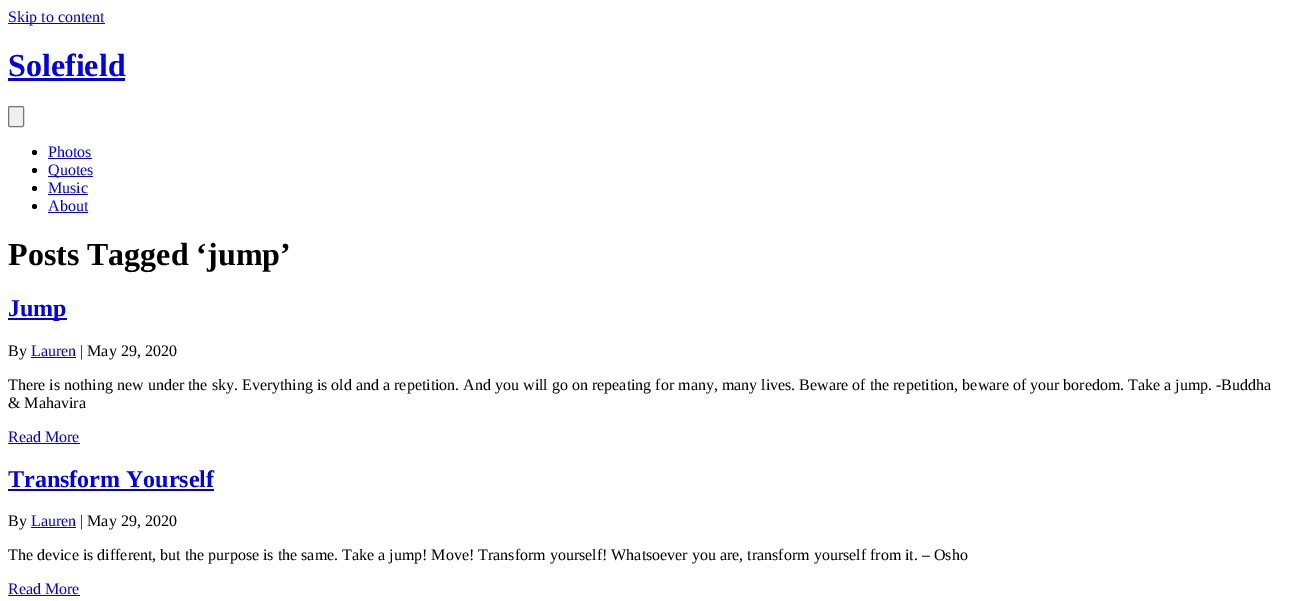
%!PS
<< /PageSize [1289 601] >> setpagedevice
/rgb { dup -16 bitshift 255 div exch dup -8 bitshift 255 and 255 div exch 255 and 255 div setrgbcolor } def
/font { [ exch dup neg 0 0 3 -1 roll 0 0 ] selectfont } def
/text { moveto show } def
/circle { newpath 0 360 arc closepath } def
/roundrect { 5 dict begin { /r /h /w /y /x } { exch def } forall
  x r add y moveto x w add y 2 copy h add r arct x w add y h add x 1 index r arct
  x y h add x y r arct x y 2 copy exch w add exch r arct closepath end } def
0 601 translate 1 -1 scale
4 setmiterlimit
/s1 { /LiberationSerif-Regular 16 font 16#0000EE rgb } def
/s2 { /LiberationSerif-Bold 32 font 16#0000EE rgb } def
/s3 { /LiberationSerif-Bold 32 font 16#000000 rgb } def
/s4 { /LiberationSerif-Bold 24 font 16#0000EE rgb } def
/s5 { /LiberationSerif-Regular 16 font 16#000000 rgb } def
16#FFFFFF rgb
0 0 1289 601 rectfill
16#0000EE rgb
8 23 97 1 rectfill
s1
(Skip to content) 8 22 text
s2
(Solefield) 8 76 text
8 78 117 3 rectfill
16#EFEFEF rgb
8.5 106.5 15 20 1.5 roundrect gsave fill grestore
16#767676 rgb
stroke
16#000000 rgb
34.5 152.5 2.5 circle fill
s1
(Photos) 48 157 text
48 158 44 1 rectfill
16#000000 rgb
34.5 170.5 2.5 circle fill
16#0000EE rgb
48 176 45 1 rectfill
(Quotes) 48 175 text
16#000000 rgb
34.5 188.5 2.5 circle fill
s1
(Music) 48 193 text
48 194 40 1 rectfill
16#000000 rgb
34.5 206.5 2.5 circle fill
s1
(About) 48 211 text
48 212 40 1 rectfill
s3
(Posts Tagged ‘jump’) 8 265 text
16#0000EE rgb
8 318 59 2 rectfill
s4
(Jump) 8 316 text
s5
(By) 8 356 text
s1
(Lauren) 31 356 text
31 357 45 1 rectfill
s5
(| May 29, 2020) 80 356 text
(There is nothing new under the sky. Everything is old and a repetition. And you will go on repeating for many, many lives. Beware of the repetition, beware of your boredom. Take a jump. -Buddha) 8 390 text
(& Mahavira) 8 408 text
s1
(Read More) 8 442 text
8 443 72 1 rectfill
s4
(Transform Yourself) 8 487 text
8 489 206 2 rectfill
s5
(By) 8 526 text
s1
(Lauren) 31 526 text
31 527 45 1 rectfill
s5
(| May 29, 2020) 80 526 text
(The device is different, but the purpose is the same. Take a jump! Move! Transform yourself! Whatsoever you are, transform yourself from it. – Osho) 8 560 text
s1
(Read More) 8 594 text
8 595 72 1 rectfill
showpage
